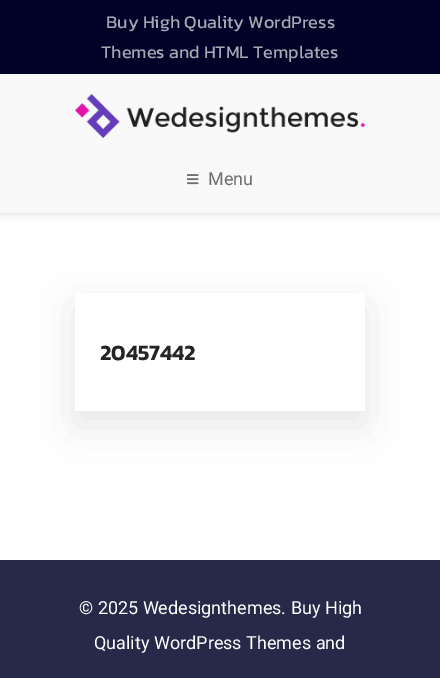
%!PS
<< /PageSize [440 678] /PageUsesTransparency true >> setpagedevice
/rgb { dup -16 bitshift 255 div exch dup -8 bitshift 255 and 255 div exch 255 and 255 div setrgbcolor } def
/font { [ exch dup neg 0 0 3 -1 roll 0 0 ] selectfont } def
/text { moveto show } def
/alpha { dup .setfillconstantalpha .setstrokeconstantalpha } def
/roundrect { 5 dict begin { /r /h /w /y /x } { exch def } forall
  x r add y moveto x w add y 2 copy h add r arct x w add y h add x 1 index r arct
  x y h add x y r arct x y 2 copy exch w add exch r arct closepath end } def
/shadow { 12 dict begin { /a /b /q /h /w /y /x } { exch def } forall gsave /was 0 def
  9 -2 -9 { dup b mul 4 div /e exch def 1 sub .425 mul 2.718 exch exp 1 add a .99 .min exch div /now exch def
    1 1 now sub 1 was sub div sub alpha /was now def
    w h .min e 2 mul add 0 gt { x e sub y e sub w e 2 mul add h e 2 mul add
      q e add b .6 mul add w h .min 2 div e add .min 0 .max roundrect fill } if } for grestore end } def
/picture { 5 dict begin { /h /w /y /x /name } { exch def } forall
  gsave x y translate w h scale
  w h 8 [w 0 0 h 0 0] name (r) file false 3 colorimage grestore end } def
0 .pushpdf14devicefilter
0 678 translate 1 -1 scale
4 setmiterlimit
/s1 { /Kanit-Regular 18 font 16#A6A7B3 rgb } def
/s2 { /Roboto-Regular 18 font 16#707070 rgb } def
/s3 { /Kanit-SemiBold 22 font 16#252525 rgb } def
/s4 { /Roboto-Regular 18 font 16#FFFFFF rgb } def
16#FFFFFF rgb
0 0 440 678 rectfill
16#000000 rgb
-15 0 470 213 0 5 0.15 shadow
16#F9F9F9 rgb
0 74 440 139 rectfill
16#000327 rgb
0 0 440 74 rectfill
s1
(Buy High Quality WordPress) 106 28 text
(Themes and HTML Templates) 101 58 text
(pic1.raw) 75 94 290 44 picture
(pic2.raw) 187 174 12 11 picture
s2
(Menu) 208 185 text
gsave
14 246 moveto 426 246 lineto 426 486 lineto 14 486 lineto closepath 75 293 moveto 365 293 lineto 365 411 lineto 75 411 lineto closepath eoclip newpath
16#000000 rgb
75 307 290 118 0 20 0.1 shadow
grestore
s3
(20457442) 100 360 text
16#262947 rgb
0 560 440 118 rectfill
s4
(© 2025 Wedesignthemes. Buy High) 79 614 text
(Quality WordPress Themes and) 94 649 text
.poppdf14devicefilter showpage
